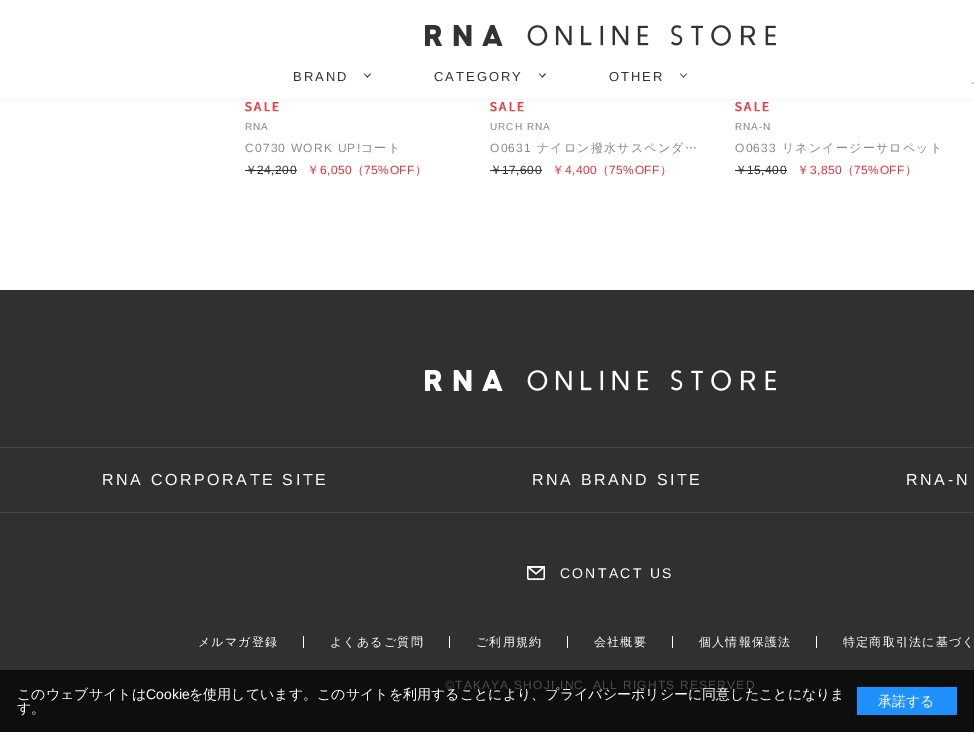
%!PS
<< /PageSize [974 732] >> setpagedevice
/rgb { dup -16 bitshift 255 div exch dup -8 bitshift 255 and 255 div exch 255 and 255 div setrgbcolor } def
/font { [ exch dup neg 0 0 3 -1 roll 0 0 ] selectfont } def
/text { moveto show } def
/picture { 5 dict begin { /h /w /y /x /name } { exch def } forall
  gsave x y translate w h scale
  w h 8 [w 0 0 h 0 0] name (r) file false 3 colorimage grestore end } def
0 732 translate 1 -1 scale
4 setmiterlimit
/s1 { /WenQuanYiZenHei-Medium 14 font 16#FFFFFF rgb } def
/s2 { /LiberationSans-Regular 14 font 16#FFFFFF rgb } def
16#FFFFFF rgb
0 0 974 732 rectfill
16#F6F6F6 rgb
0 99 974 1 rectfill
(pic1.raw) 425 25 351 21 picture
16#D8D8D8 rgb
971 82 3 2 rectfill
/LiberationSans-Regular 13 font
16#333333 rgb
293 81 moveto 2 0 (BRAND) ashow
371 74 moveto 367.5 77.5 lineto 366.5 77 lineto 370.5 73.5 lineto closepath fill
368 77 moveto 367.5 77.5 lineto 364 74 lineto 364.5 73.5 lineto closepath fill
434 81 moveto 2 0 (CATEGORY) ashow
546 74 moveto 542.5 77.5 lineto 541.5 77 lineto 545 73.5 lineto closepath fill
543 77 moveto 542.5 77.5 lineto 539 74 lineto 539.5 73.5 lineto closepath fill
609 81 moveto 2 0 (OTHER) ashow
687 74 moveto 683.5 77.5 lineto 683 77 lineto 686.5 73.5 lineto closepath fill
684 77 moveto 683.5 77.5 lineto 680 74 lineto 680.5 73.5 lineto closepath fill
(pic2.raw) 245 102 34 10 picture
/LiberationSans-Regular 10 font
16#8A8A8A rgb
245 130 moveto 1 0 (RNA) ashow
/LiberationSans-Regular 12 font
245 152 moveto 1.2 0 (C0730 WORK UP!) ashow
/WenQuanYiZenHei-Medium 12 font
361 152 moveto 1.2 0 (コート) ashow
16#333333 rgb
245 174 moveto 0.5 0 (￥) ashow
/LiberationSans-Regular 12 font
257 174 moveto 0.5 0 (24,200) ashow
245 170 52 1 rectfill
/WenQuanYiZenHei-Medium 12 font
16#E3343B rgb
307 174 moveto 0.5 0 (￥) ashow
/LiberationSans-Regular 12 font
320 174 moveto 0.5 0 (6,050) ashow
/WenQuanYiZenHei-Medium 12 font
352 174 moveto 0.5 0 (（) ashow
/LiberationSans-Regular 12 font
364 174 moveto 0.5 0 (75%OFF) ashow
/WenQuanYiZenHei-Medium 12 font
415 174 moveto 0.5 0 (）) ashow
(pic3.raw) 490 102 34 10 picture
/LiberationSans-Regular 10 font
16#8A8A8A rgb
490 130 moveto 1 0 (URCH RNA) ashow
/LiberationSans-Regular 12 font
490 152 moveto 1.2 0 (O0631) ashow
/WenQuanYiZenHei-Medium 12 font
537 152 moveto 1.2 0 (ナイロン撥水サスペンダ…) ashow
16#333333 rgb
490 174 moveto 0.5 0 (￥) ashow
/LiberationSans-Regular 12 font
502 174 moveto 0.5 0 (17,600) ashow
490 170 52 1 rectfill
/WenQuanYiZenHei-Medium 12 font
16#E3343B rgb
552 174 moveto 0.5 0 (￥) ashow
/LiberationSans-Regular 12 font
565 174 moveto 0.5 0 (4,400) ashow
/WenQuanYiZenHei-Medium 12 font
597 174 moveto 0.5 0 (（) ashow
/LiberationSans-Regular 12 font
609 174 moveto 0.5 0 (75%OFF) ashow
/WenQuanYiZenHei-Medium 12 font
660 174 moveto 0.5 0 (）) ashow
(pic4.raw) 735 102 34 10 picture
/LiberationSans-Regular 10 font
16#8A8A8A rgb
735 130 moveto 1 0 (RNA-N) ashow
/LiberationSans-Regular 12 font
735 152 moveto 1.2 0 (O0633) ashow
/WenQuanYiZenHei-Medium 12 font
782 152 moveto 1.2 0 (リネンイージーサロペット) ashow
16#333333 rgb
735 174 moveto 0.5 0 (￥) ashow
/LiberationSans-Regular 12 font
747 174 moveto 0.5 0 (15,400) ashow
735 170 52 1 rectfill
/WenQuanYiZenHei-Medium 12 font
16#E3343B rgb
797 174 moveto 0.5 0 (￥) ashow
/LiberationSans-Regular 12 font
810 174 moveto 0.5 0 (3,850) ashow
/WenQuanYiZenHei-Medium 12 font
842 174 moveto 0.5 0 (（) ashow
/LiberationSans-Regular 12 font
854 174 moveto 0.5 0 (75%OFF) ashow
/WenQuanYiZenHei-Medium 12 font
905 174 moveto 0.5 0 (）) ashow
16#303030 rgb
0 290 974 380 rectfill
16#0E0E0E rgb
0 670 974 62 rectfill
(pic5.raw) 425 370 351 21 picture
16#434343 rgb
0 447 974 1 rectfill
0 512 974 1 rectfill
/LiberationSans-Regular 16 font
16#FFFFFF rgb
102 485 moveto 2.6 0 (RNA CORPORATE SITE) ashow
532 485 moveto 2.6 0 (RNA BRAND SITE) ashow
906 485 moveto 2.6 0 (RNA-N) ashow
(pic6.raw) 527 566 18 14 picture
/LiberationSans-Regular 14 font
560 578 moveto 2.25 0 (CONTACT US) ashow
303 636 1 12 rectfill
/WenQuanYiZenHei-Medium 12 font
198 646 moveto 1.2 0 (メルマガ登録) ashow
449 636 1 12 rectfill
330 646 moveto 1.2 0 (よくあるご質問) ashow
567 636 1 12 rectfill
476 646 moveto 1.2 0 (ご利用規約) ashow
672 636 1 12 rectfill
594 646 moveto 1.2 0 (会社概要) ashow
816 636 1 12 rectfill
699 646 moveto 1.2 0 (個人情報保護法) ashow
843 646 moveto 1.2 0 (特定商取引法に基づく) ashow
/LiberationSans-Regular 12 font
16#4D4D4D rgb
445 689 moveto 1.2 0 (©TAKAYA SHOJI INC. ALL RIGHTS RESERVED) ashow
s1
(このウェブサイトは) 17 699 text
s2
(Cookie) 146 699 text
s1
(を使用しています。このサイトを利用することにより、プライバシーポリシーに同意したことになりま) 189 699 text
(す。) 17 713 text
16#1E90FF rgb
857 687 100 28 rectfill
s1
(承諾する) 878 706 text
showpage
